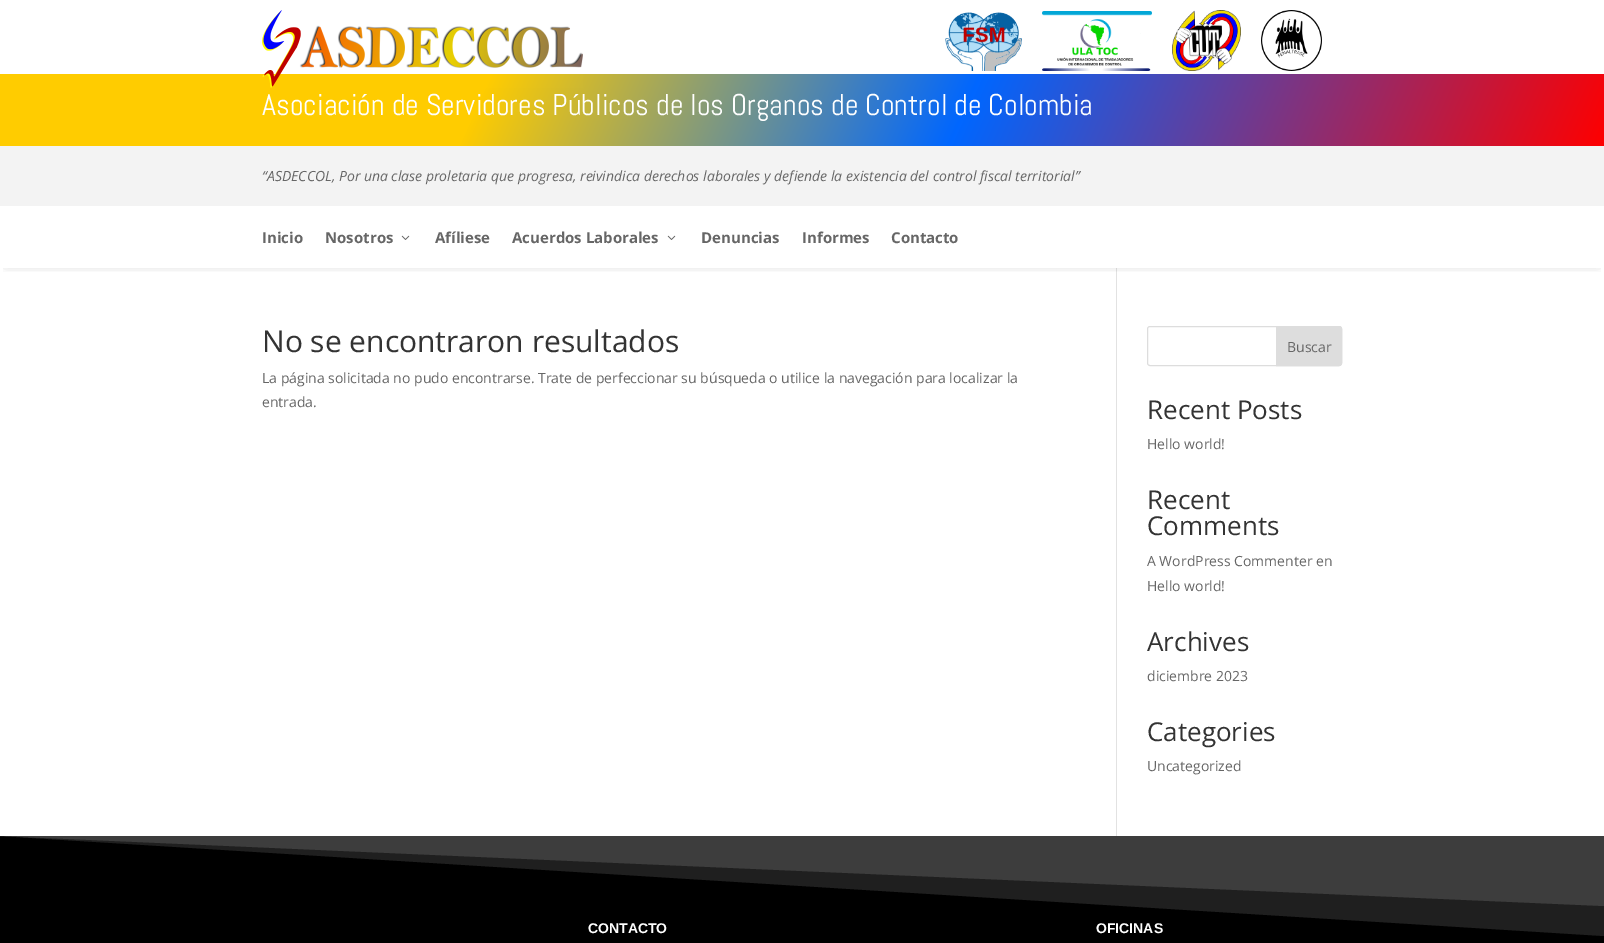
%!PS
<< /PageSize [1604 943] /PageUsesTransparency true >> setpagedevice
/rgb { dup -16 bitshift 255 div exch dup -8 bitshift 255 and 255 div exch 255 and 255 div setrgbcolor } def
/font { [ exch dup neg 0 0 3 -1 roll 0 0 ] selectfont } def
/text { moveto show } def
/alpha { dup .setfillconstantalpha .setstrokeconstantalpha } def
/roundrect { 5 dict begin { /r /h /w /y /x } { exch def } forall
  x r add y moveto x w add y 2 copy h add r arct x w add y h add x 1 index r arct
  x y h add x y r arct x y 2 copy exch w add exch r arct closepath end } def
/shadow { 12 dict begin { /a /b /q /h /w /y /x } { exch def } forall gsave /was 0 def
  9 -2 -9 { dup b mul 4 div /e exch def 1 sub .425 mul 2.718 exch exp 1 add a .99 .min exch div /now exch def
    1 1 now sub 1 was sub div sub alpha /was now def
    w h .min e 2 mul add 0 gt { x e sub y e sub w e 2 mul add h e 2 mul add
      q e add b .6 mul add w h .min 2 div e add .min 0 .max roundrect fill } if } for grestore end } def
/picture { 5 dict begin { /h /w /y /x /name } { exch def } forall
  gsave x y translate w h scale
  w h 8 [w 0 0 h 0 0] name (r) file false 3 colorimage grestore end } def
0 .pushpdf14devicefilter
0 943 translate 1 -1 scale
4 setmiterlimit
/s1 { /Abel-Regular 30 font 16#FFFFFF rgb } def
/s2 { /OpenSans-Italic 14 font 16#666666 rgb } def
/s3 { /OpenSans-Bold 15 font 16#666666 rgb } def
/s4 { /OpenSans-Regular 30 font 16#333333 rgb } def
/s5 { /OpenSans-Regular 14 font 16#666666 rgb } def
/s6 { /OpenSans-Regular 26 font 16#333333 rgb } def
/s7 { /Arimo-Bold 14 font 16#FFFFFF rgb } def
16#FFFFFF rgb
0 0 1604 943 rectfill
gsave 0 74 moveto 1604 74 lineto 1604 146 lineto 0 146 lineto closepath clip newpath
<< /ShadingType 2 /ColorSpace /DeviceRGB /Coords [119 -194 1485 414] /Extend [true true] /Function << /FunctionType 3 /Domain [0 1] /Functions [<< /FunctionType 2 /Domain [0 1] /C0 [1 0.8 0] /C1 [1 0.8 0] /N 1 >> << /FunctionType 2 /Domain [0 1] /C0 [1 0.8 0] /C1 [0 0.4 1] /N 1 >> << /FunctionType 2 /Domain [0 1] /C0 [0 0.4 1] /C1 [1 0 0] /N 1 >>] /Bounds [0.3 0.6] /Encode [0 1 0 1 0 1] >> >> shfill grestore
(pic1.raw) 262 10 321 78 picture
(pic2.raw) 945 12 77 59 picture
(pic3.raw) 1042 11 110 60 picture
(pic4.raw) 1172 10 69 61 picture
(pic5.raw) 1261 10 61 61 picture
s1
(Asociación de Servidores Públicos de los Organos de Control de Colombia) 262 115 text
16#F3F3F3 rgb
0 146 1604 60 rectfill
s2
(“ASDECCOL, Por una clase proletaria que progresa, reivindica derechos laborales y defiende la existencia del control fiscal territorial”) 262 181 text
16#E2E2E2 rgb
1116 268 1 568 rectfill
gsave
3 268 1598 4 rectclip
16#000000 rgb
6 214 1592 50 0 5.5 0.3 shadow
grestore
s3
(Inicio) 262 243 text
(Nosotros) 325 243 text
(pic6.raw) 401 235 9 5 picture
(Afíliese) 435 243 text
(Acuerdos Laborales) 512 243 text
(pic6.raw) 667 235 9 5 picture
(Denuncias) 701 243 text
(Informes) 802 243 text
(Contacto) 891 243 text
s4
(No se encontraron resultados) 262 352 text
s5
(La página solicitada no pudo encontrarse. Trate de perfeccionar su búsqueda o utilice la navegación para localizar la) 262 383 text
(entrada.) 262 407 text
16#DDDDDD rgb
1147.5 326.5 194 39 2.5 roundrect stroke
1276.5 326.5 moveto 1339 326.5 lineto 1340.5 326.5 1341.5 327.5 1341.5 329 curveto 1341.5 363 lineto 1341.5 364.5 1340.5 365.5 1339 365.5 curveto 1276.5 365.5 lineto closepath gsave fill grestore
stroke
s5
(Buscar) 1287 352 text
s6
(Recent Posts) 1147 419 text
s5
(Hello world!) 1147 449 text
s6
(Recent) 1147 509 text
(Comments) 1147 535 text
s5
(A WordPress Commenter en) 1147 566 text
(Hello world!) 1147 591 text
s6
(Archives) 1147 651 text
s5
(diciembre 2023) 1147 681 text
s6
(Categories) 1147 741 text
s5
(Uncategorized) 1147 771 text
16#000000 rgb
0 836 1604 107 rectfill
16#1F1F1F rgb
1604 936 moveto 1604 836 lineto 0 836 lineto closepath fill
16#3D3D3D rgb
1604 906 moveto 1604 836 lineto 0 836 lineto closepath fill
s7
(CONTACTO) 588 933 text
(OFICINAS) 1096 933 text
.poppdf14devicefilter showpage
